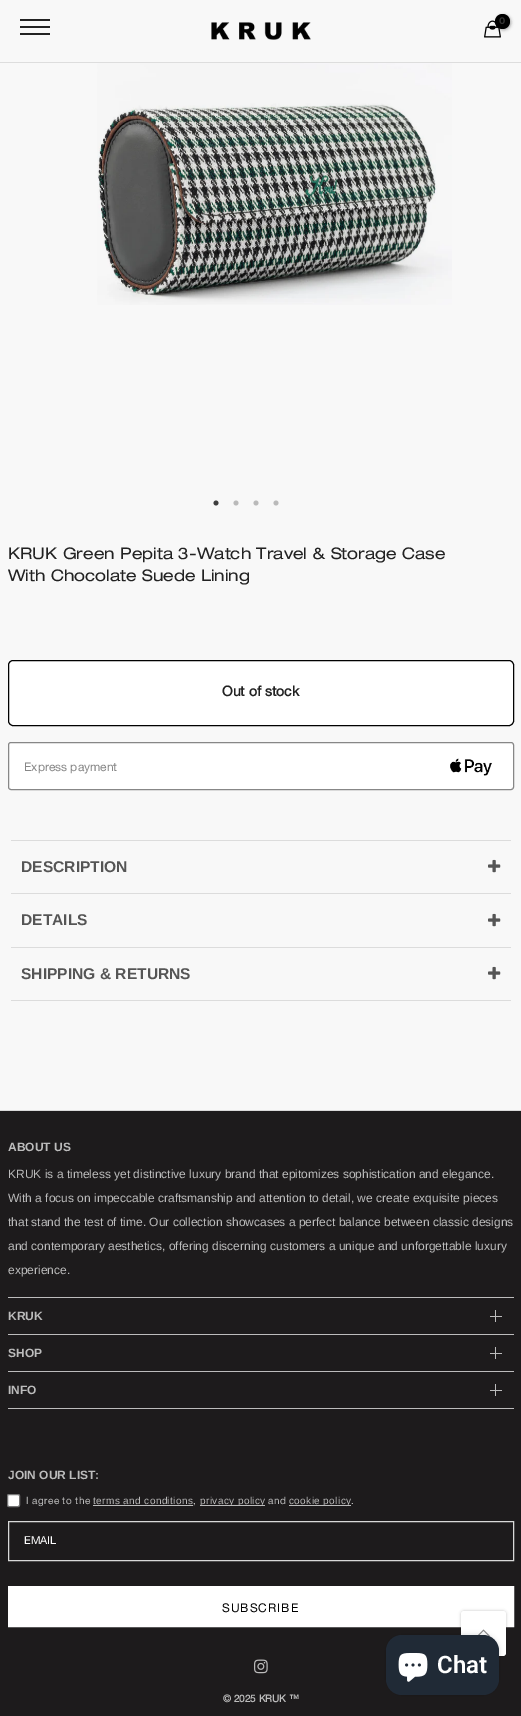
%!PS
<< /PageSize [521 1716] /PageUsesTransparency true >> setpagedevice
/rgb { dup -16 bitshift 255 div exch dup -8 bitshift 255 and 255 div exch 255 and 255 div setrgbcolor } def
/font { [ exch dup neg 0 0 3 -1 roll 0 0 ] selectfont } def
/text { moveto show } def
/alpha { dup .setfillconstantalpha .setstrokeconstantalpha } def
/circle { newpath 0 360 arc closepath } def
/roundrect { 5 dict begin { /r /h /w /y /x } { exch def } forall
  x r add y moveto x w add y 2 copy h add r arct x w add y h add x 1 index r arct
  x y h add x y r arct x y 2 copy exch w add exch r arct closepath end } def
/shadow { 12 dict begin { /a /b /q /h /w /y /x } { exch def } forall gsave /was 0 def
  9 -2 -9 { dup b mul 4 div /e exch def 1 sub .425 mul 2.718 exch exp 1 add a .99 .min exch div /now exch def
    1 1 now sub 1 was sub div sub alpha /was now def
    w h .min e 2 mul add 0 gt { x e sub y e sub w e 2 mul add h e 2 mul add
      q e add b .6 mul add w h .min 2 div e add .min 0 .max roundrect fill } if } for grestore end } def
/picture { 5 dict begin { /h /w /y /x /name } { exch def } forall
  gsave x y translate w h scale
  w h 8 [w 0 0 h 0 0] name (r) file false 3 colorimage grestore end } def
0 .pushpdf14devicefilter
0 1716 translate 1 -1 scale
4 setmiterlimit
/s1 { /HelveticaNeue-Regular 16 font 16#222222 rgb } def
/s2 { /HelveticaNeue-Bold 14 font 16#222222 rgb } def
/s3 { /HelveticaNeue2-Regular 12 font 16#878787 rgb } def
/s4 { /LiberationSans-Bold 15.6 font 16#555555 rgb } def
/s5 { /LiberationSans-Bold 12 font 16#BCBCBC rgb } def
/s6 { /LiberationSans-Regular 12 font 16#BCBCBC rgb } def
/s7 { /HelveticaNeue2-Regular 11 font 16#FFFFFF rgb } def
/s8 { /HelveticaNeue-Bold 10 font 16#BCBCBC rgb } def
/s9 { /Roboto-SemiBold 24 font 16#FFFFFF rgb } def
16#F8F8F8 rgb
0 0 521 1716 rectfill
16#DDDDDD rgb
0 62 521 1 rectfill
16#222222 rgb
20 19 30 2 rectfill
20 26 30 2 rectfill
20 33 30 2 rectfill
(pic1.raw) 211 22 100 18 picture
(pic3.raw) 484 20 17 18 picture
16#000000 rgb
496 15 15 15 7.5 1.5 0.3 shadow
502.5 21.5 7.5 circle fill
(pic2.raw) 499 17 6 7 picture
(pic4.raw) 97 63 355 242 picture
(pic5.raw) 213 500 6 6 picture
(pic6.raw) 233 500 6 6 picture
(pic6.raw) 253 500 6 6 picture
(pic6.raw) 273 500 6 6 picture
s1
(KRUK Green Pepita 3-Watch Travel & Storage Case) 8 559 text
(With Chocolate Suede Lining) 8 581 text
16#FFFFFF rgb
8.5 660.5 505 65 4.5 roundrect gsave fill grestore
16#000000 rgb
stroke
s2
(Out of stock) 222 696 text
16#FFFFFF rgb
8.5 742.5 505 47 2.5 roundrect gsave fill grestore
16#878787 rgb
stroke
s3
(Express payment) 24 771 text
(pic7.raw) 450 758 42 18 picture
16#DCDCDC rgb
11 840 500 1 rectfill
11 893 500 1 rectfill
s4
(DESCRIPTION) 21 872 text
(pic8.raw) 488 859 13 14 picture
16#DCDCDC rgb
11 947 500 1 rectfill
s4
(DETAILS) 21 925 text
(pic8.raw) 488 913 13 14 picture
16#DCDCDC rgb
11 1000 500 1 rectfill
s4
(SHIPPING & RETURNS) 21 979 text
(pic8.raw) 488 966 13 14 picture
16#D9D9D9 rgb
0 1110 521 1 rectfill
16#1D1B1C rgb
0 1111 521 605 rectfill
s5
(ABOUT US) 8 1151 text
s6
(KRUK is a timeless yet distinctive luxury brand that epitomizes sophistication and elegance.) 8 1178 text
(With a focus on impeccable craftsmanship and attention to detail, we create exquisite pieces) 8 1202 text
(that stand the test of time. Our collection showcases a perfect balance between classic designs) 8 1226 text
(and contemporary aesthetics, offering discerning customers a unique and unforgettable luxury) 8 1250 text
(experience.) 8 1274 text
8 1297 506 1 rectfill
8 1334 506 1 rectfill
s5
(KRUK) 8 1320 text
495 1310 1 12 rectfill
490 1316 12 1 rectfill
8 1371 506 1 rectfill
(SHOP) 8 1357 text
495 1347 1 12 rectfill
490 1353 12 1 rectfill
8 1408 506 1 rectfill
(INFO) 8 1394 text
495 1384 1 12 rectfill
490 1390 12 1 rectfill
(JOIN OUR LIST:) 8 1479 text
16#FFFFFF rgb
7.5 1494.5 12 12 1.5 roundrect gsave fill grestore
16#767676 rgb
stroke
/HelveticaNeue2-Regular 10 font
16#BCBCBC rgb
26 1504 moveto 0.4 0 (I agree to the) ashow
/LiberationSans-Regular 10 font
93 1504 moveto 0.4 0 (terms and conditions) ashow
/HelveticaNeue2-Regular 10 font
193 1504 moveto 0.4 0 (,) ashow
93 1505 100 1 rectfill
200 1505 65 1 rectfill
/LiberationSans-Regular 10 font
200 1504 moveto 0.4 0 (privacy policy) ashow
/HelveticaNeue2-Regular 10 font
268 1504 moveto 0.4 0 (and) ashow
289 1505 62 1 rectfill
/LiberationSans-Regular 10 font
289 1504 moveto 0.4 0 (cookie policy) ashow
/HelveticaNeue2-Regular 10 font
351 1504 moveto 0.4 0 (.) ashow
16#D9D9D9 rgb
8.5 1521.5 505 39 rectstroke
s7
(EMAIL) 24 1544 text
8.5 1586.5 505 40 rectstroke
9 1587 504 39 rectfill
/HelveticaNeue2-Regular 12 font
16#000000 rgb
222 1612 moveto 1 0 (SUBSCRIBE) ashow
(pic9.raw) 254 1659 14 15 picture
s8
(© 2025 KRUK ™) 223 1702 text
16#000000 rgb
461 1611 45 45 3 1.5 0.2 shadow
16#FFFFFF rgb
461 1611 45 45 3 roundrect fill
(pic10.raw) 478 1629 12 8 picture
16#000000 rgb
386 1635 113 60 16 2.5 0.15 shadow
16#202A36 rgb
386 1635 113 60 16 roundrect fill
(pic11.raw) 398 1653 30 29 picture
s9
(Chat) 437 1673 text
.poppdf14devicefilter showpage
